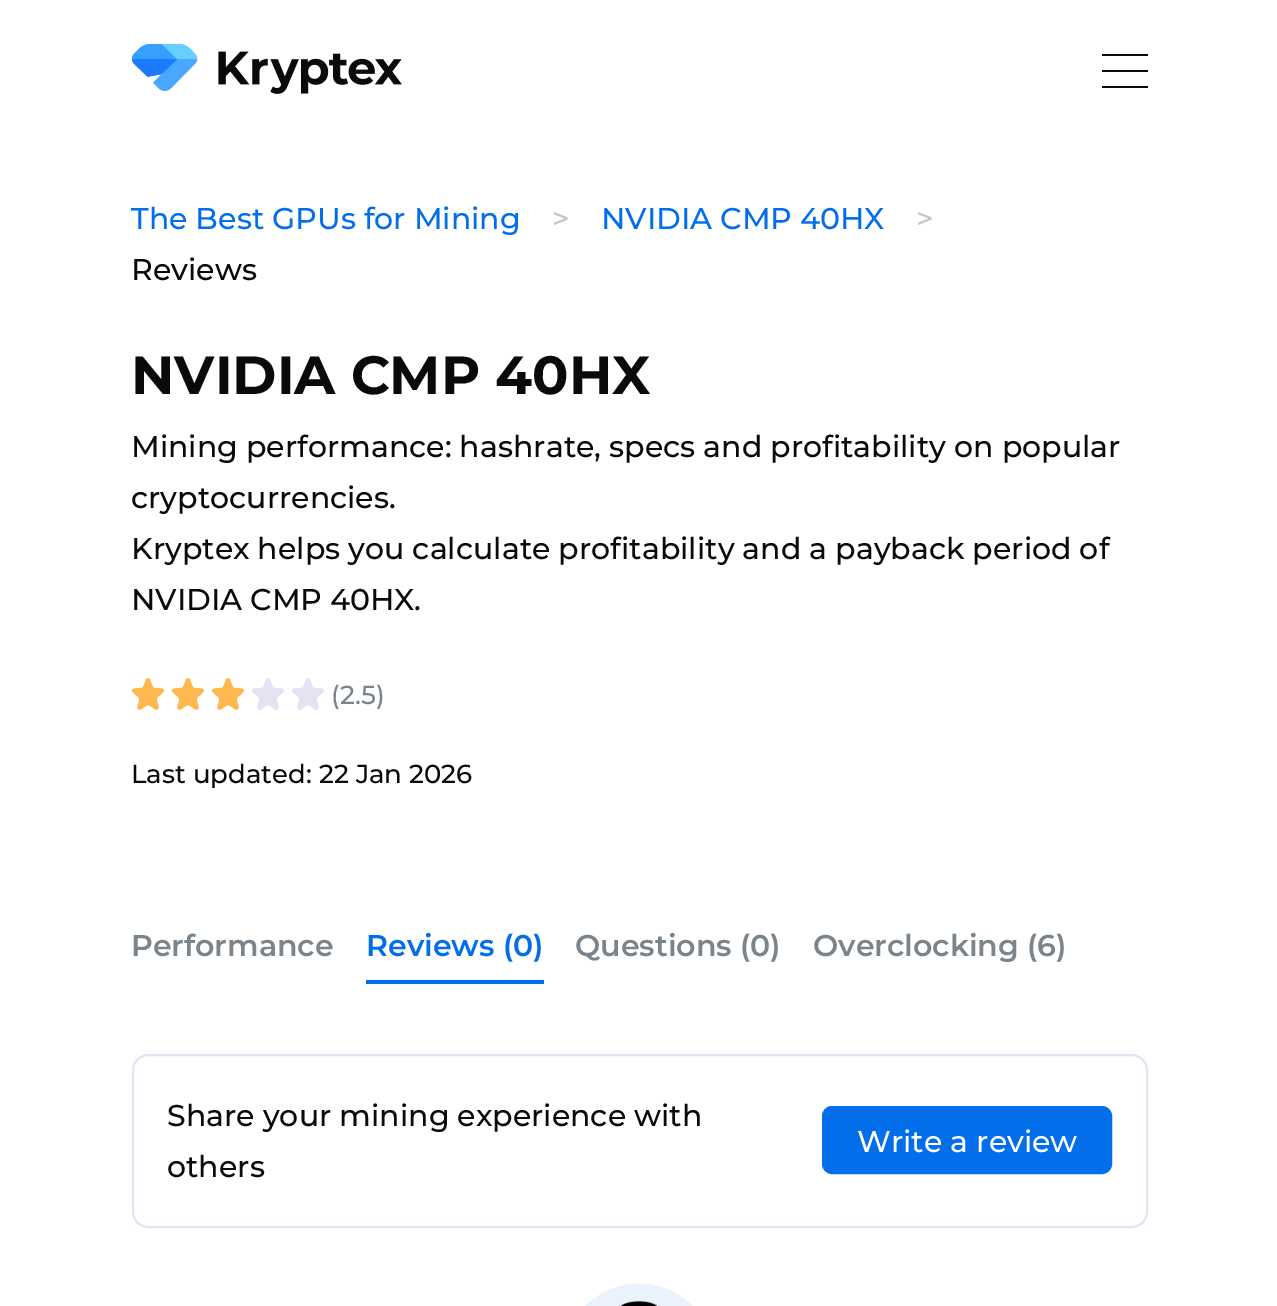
%!PS
<< /PageSize [1277 1306] >> setpagedevice
/rgb { dup -16 bitshift 255 div exch dup -8 bitshift 255 and 255 div exch 255 and 255 div setrgbcolor } def
/font { [ exch dup neg 0 0 3 -1 roll 0 0 ] selectfont } def
/text { moveto show } def
/roundrect { 5 dict begin { /r /h /w /y /x } { exch def } forall
  x r add y moveto x w add y 2 copy h add r arct x w add y h add x 1 index r arct
  x y h add x y r arct x y 2 copy exch w add exch r arct closepath end } def
/picture { 5 dict begin { /h /w /y /x /name } { exch def } forall
  gsave x y translate w h scale
  w h 8 [w 0 0 h 0 0] name (r) file false 3 colorimage grestore end } def
0 1306 translate 1 -1 scale
4 setmiterlimit
/s1 { /Montserrat-Medium 30 font 16#036EE9 rgb } def
/s2 { /Montserrat-Medium 30 font 16#C6C6C6 rgb } def
/s3 { /Montserrat-Medium 30 font 16#0A0A0A rgb } def
/s4 { /Montserrat-Bold 53.75 font 16#0A0A0A rgb } def
/s5 { /Montserrat-Medium 26 font 16#7A848A rgb } def
/s6 { /Montserrat-Medium 26 font 16#0A0A0A rgb } def
/s7 { /Montserrat-SemiBold 30 font 16#7A848A rgb } def
/s8 { /Montserrat-SemiBold 30 font 16#036EE9 rgb } def
/s9 { /Montserrat-Medium 30 font 16#FFFFFF rgb } def
16#FFFFFF rgb
0 0 1277 1306 rectfill
(pic1.raw) 132 44 270 50 picture
16#0A0A0A rgb
1102 54 46 2 rectfill
1102 70 46 2 rectfill
1102 86 46 2 rectfill
s1
(The Best GPUs for Mining) 131 229 text
s2
(>) 552 229 text
s1
(NVIDIA CMP 40HX) 601 229 text
s2
(>) 916 229 text
s3
(Reviews) 131 280 text
s4
(NVIDIA CMP 40HX) 131 394 text
s3
(Mining performance: hashrate, specs and profitability on popular) 131 457 text
(cryptocurrencies.) 131 508 text
(Kryptex helps you calculate profitability and a payback period of) 131 559 text
(NVIDIA CMP 40HX.) 131 610 text
(pic2.raw) 132 678 32 32 picture
(pic2.raw) 172 678 32 32 picture
(pic2.raw) 212 678 32 32 picture
(pic3.raw) 252 678 32 32 picture
(pic4.raw) 292 678 32 32 picture
s5
(\(2.5\)) 331 704 text
s6
(Last updated: 22 Jan 2026) 131 783 text
s7
(Performance) 131 956 text
s8
(Reviews \(0\)) 366 956 text
366 980 178 4 rectfill
s7
(Questions \(0\)) 575 956 text
(Overclocking \(6\)) 813 956 text
16#E3E3F3 rgb
2 setlinewidth
133 1055 1014 172 15 roundrect stroke
s3
(Share your mining experience with) 167 1126 text
(others) 167 1177 text
16#036EE9 rgb
823 1107 288 66 9 roundrect gsave fill grestore
stroke
s9
(Write a review) 857 1152 text
(pic5.raw) 585 1283 108 23 picture
showpage
